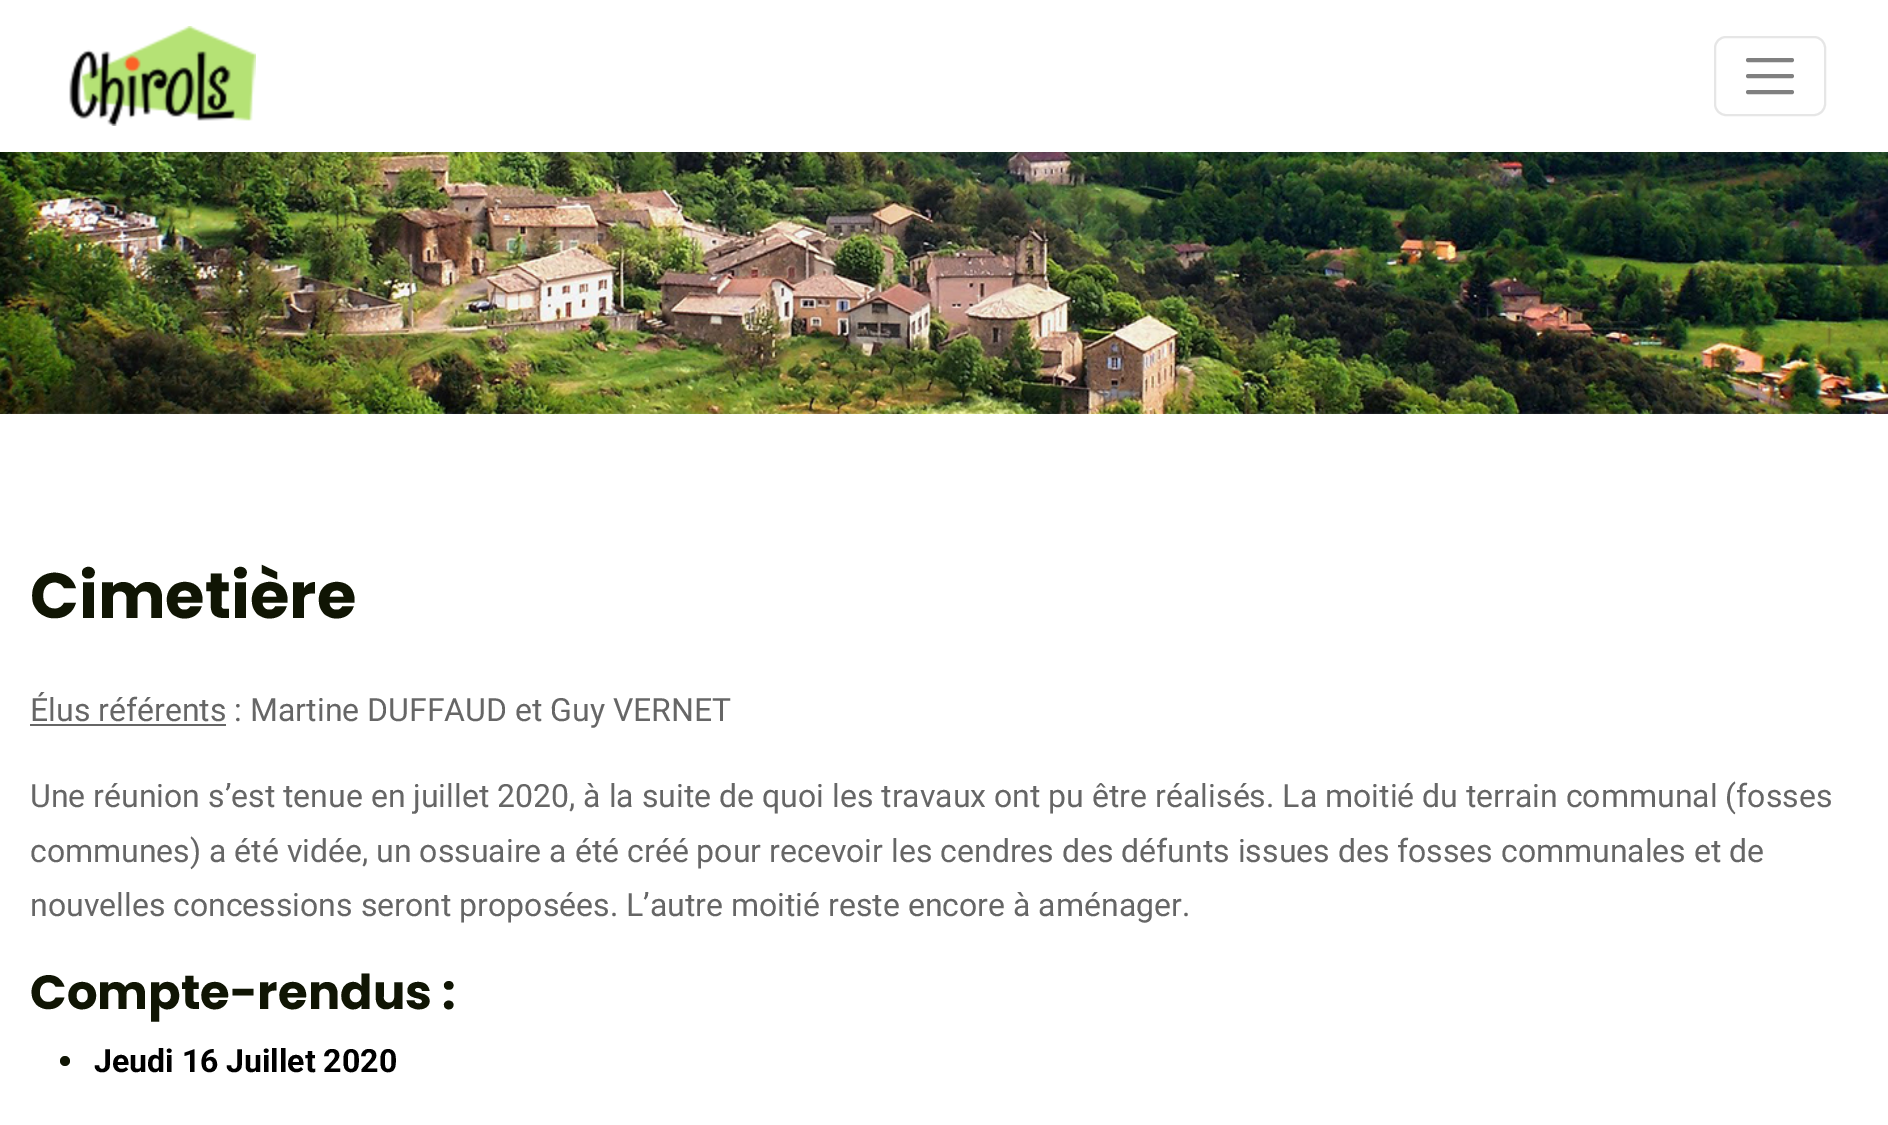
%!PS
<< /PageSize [1888 1125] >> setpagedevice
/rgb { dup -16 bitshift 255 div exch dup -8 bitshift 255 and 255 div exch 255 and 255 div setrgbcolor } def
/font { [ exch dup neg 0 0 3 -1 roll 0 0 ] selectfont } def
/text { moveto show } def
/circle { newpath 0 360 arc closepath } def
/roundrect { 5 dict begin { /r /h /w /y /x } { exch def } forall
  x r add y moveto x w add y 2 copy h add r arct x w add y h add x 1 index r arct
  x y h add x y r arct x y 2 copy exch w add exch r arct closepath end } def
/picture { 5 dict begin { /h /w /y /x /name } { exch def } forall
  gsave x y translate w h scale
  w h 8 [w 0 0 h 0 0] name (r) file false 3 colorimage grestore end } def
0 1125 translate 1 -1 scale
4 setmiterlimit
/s1 { /Poppins-Bold 64 font 16#101504 rgb } def
/s2 { /Roboto-Regular 32 font 16#666666 rgb } def
/s3 { /Poppins-Bold 48 font 16#101504 rgb } def
/s4 { /Roboto-Bold 32 font 16#000000 rgb } def
16#FFFFFF rgb
0 0 1888 1125 rectfill
(pic1.raw) 69 26 187 100 picture
16#E6E6E6 rgb
2 setlinewidth
1715 37 110 78 11 roundrect stroke
16#808080 rgb
4 setlinewidth
1 setlinecap
1748 60 moveto 1792 60 lineto 1748 76 moveto 1792 76 lineto 1748 92 moveto 1792 92 lineto stroke
(pic2.raw) 0 152 1888 262 picture
s1
(Cimetière) 30 618 text
16#666666 rgb
30 724 196 2 rectfill
s2
(Élus référents : Martine DUFFAUD et Guy VERNET) 30 721 text
(Une réunion s’est tenue en juillet 2020, à la suite de quoi les travaux ont pu être réalisés. La moitié du terrain communal \(fosses) 30 807 text
(communes\) a été vidée, un ossuaire a été créé pour recevoir les cendres des défunts issues des fosses communales et de) 30 862 text
(nouvelles concessions seront proposées. L’autre moitié reste encore à aménager.) 30 916 text
s3
(Compte-rendus :) 30 1009 text
65 1061 5 circle fill
s4
(Jeudi 16 Juillet 2020) 94 1072 text
showpage
